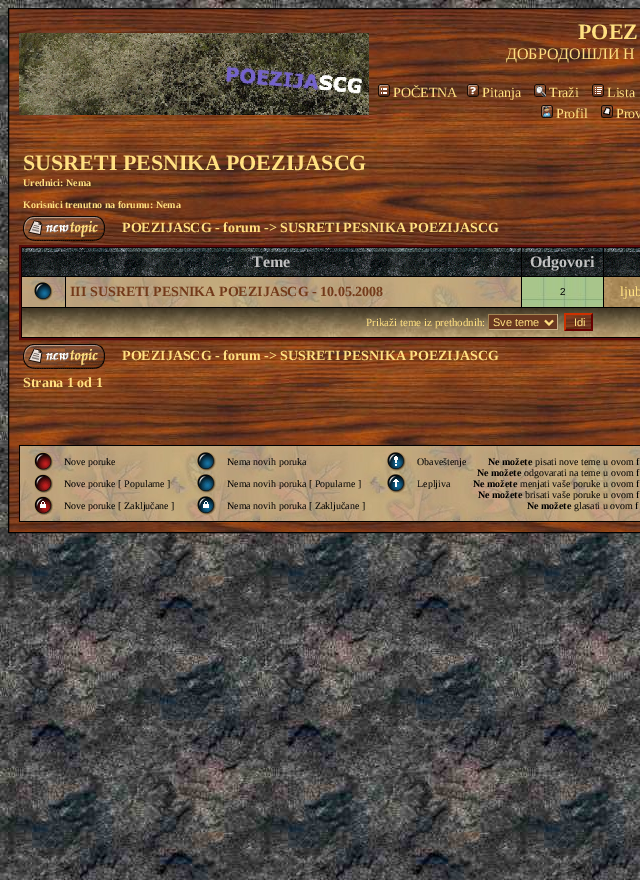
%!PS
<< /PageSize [640 880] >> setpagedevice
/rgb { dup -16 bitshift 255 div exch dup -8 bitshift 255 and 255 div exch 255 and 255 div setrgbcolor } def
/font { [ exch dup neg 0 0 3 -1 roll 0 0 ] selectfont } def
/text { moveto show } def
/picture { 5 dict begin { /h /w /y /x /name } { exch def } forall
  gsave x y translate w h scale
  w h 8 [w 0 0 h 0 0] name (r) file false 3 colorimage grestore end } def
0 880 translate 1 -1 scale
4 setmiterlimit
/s1 { /LiberationSerif-Bold 22 font 16#FFE081 rgb } def
/s2 { /LiberationSerif-Regular 16 font 16#FFE081 rgb } def
/s3 { /LiberationSerif-Regular 14 font 16#FFE081 rgb } def
/s4 { /LiberationSerif-Bold 10 font 16#FFE081 rgb } def
/s5 { /LiberationSerif-Bold 14 font 16#FFE081 rgb } def
/s6 { /LiberationSerif-Bold 16 font 16#C0C0C0 rgb } def
/s7 { /LiberationSerif-Bold 14 font 16#733A1A rgb } def
/s8 { /LiberationSans-Regular 10 font 16#000000 rgb } def
/s9 { /LiberationSerif-Regular 11 font 16#FFE081 rgb } def
/s10 { /LiberationSans-Regular 11 font 16#FFE081 rgb } def
/s11 { /LiberationSerif-Regular 10 font 16#000000 rgb } def
/s12 { /LiberationSerif-Bold 10 font 16#000000 rgb } def
16#FFFFFF rgb
0 0 640 880 rectfill
(pic1.raw) 0 0 640 880 picture
(pic2.raw) 9 9 631 523 picture
16#000000 rgb
8.5 8.5 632 524 rectstroke
(pic3.raw) 19 33 350 82 picture
s1
(POEZ) 578 39 text
s2
(ДОБРОДОШЛИ Н) 506 59 text
(pic4.raw) 378 84 12 13 picture
s3
(POČETNA) 393 97 text
(pic5.raw) 467 84 12 13 picture
(Pitanja) 482 97 text
(pic6.raw) 534 84 12 13 picture
(Traži) 549 97 text
(pic7.raw) 592 84 12 13 picture
(Lista) 607 97 text
(pic8.raw) 541 105 12 13 picture
(Profil) 556 118 text
(pic9.raw) 601 105 12 13 picture
(Prov) 616 118 text
s1
(SUSRETI PESNIKA POEZIJASCG) 23 170 text
s4
(Urednici: Nema) 23 186 text
(Korisnici trenutno na forumu: Nema) 23 208 text
(pic10.raw) 23 216 82 25 picture
s5
(POEZIJASCG - forum -> SUSRETI PESNIKA POEZIJASCG) 122 232 text
16#000000 rgb
20 246 moveto 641 246 lineto 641 339 lineto 20 339 lineto closepath gsave fill grestore
16#5B0B0B rgb
2 setlinewidth
stroke
(pic11.raw) 22 248 499 28 picture
s6
(Teme) 252 267 text
(pic12.raw) 522 248 81 28 picture
(Odgovori) 530 267 text
(pic13.raw) 604 248 36 28 picture
(pic14.raw) 22 277 43 30 picture
(pic15.raw) 34 282 19 19 picture
(pic16.raw) 66 277 455 30 picture
s7
(III SUSRETI PESNIKA POEZIJASCG - 10.05.2008) 70 296 text
(pic17.raw) 522 277 81 30 picture
s8
(2) 560 295 text
(pic18.raw) 604 277 36 30 picture
s3
(ljub) 620 296 text
(pic19.raw) 22 308 618 29 picture
s9
(Prikaži teme iz prethodnih:) 366 326 text
16#6A3921 rgb
489 315 68 14 rectfill
16#A48553 rgb
488 314 70 1 rectfill
16#C7B188 rgb
557 314 1 16 rectfill
488 329 70 1 rectfill
16#A48553 rgb
488 314 1 16 rectfill
16#FFE081 rgb
545 320.5 moveto 549 324.5 lineto 553 320.5 lineto stroke
s10
(Sve teme) 493 326 text
(pic20.raw) 564 313 29 18 picture
16#CE3100 rgb
564 313 moveto 593 313 lineto 591 315 lineto 566 315 lineto closepath fill
16#680000 rgb
593 313 moveto 593 331 lineto 591 329 lineto 591 315 lineto closepath fill
593 331 moveto 564 331 lineto 566 329 lineto 591 329 lineto closepath fill
16#CE3100 rgb
564 331 moveto 564 313 lineto 566 315 lineto 566 329 lineto closepath fill
s10
(Idi) 574 326 text
(pic21.raw) 23 344 82 25 picture
s5
(POEZIJASCG - forum -> SUSRETI PESNIKA POEZIJASCG) 122 360 text
(Strana 1 od 1) 23 387 text
16#000000 rgb
19 445 621 77 rectfill
(pic22.raw) 20 446 620 75 picture
(pic23.raw) 34 452 19 19 picture
s11
(Nove poruke) 64 465 text
(pic24.raw) 197 452 19 19 picture
(Nema novih poruka) 227 465 text
(pic25.raw) 387 452 19 19 picture
(Obaveštenje) 417 465 text
(pic26.raw) 34 474 19 19 picture
(Nove poruke [ Popularne ]) 64 487 text
(pic27.raw) 197 474 19 19 picture
(Nema novih poruka [ Popularne ]) 227 487 text
(pic28.raw) 387 474 19 19 picture
(Lepljiva) 417 487 text
(pic29.raw) 34 496 19 19 picture
(Nove poruke [ Zaključane ]) 64 509 text
(pic30.raw) 197 496 19 19 picture
(Nema novih poruka [ Zaključane ]) 227 509 text
s12
(Ne možete) 488 465 text
s11
(pisati nove teme u ovom f) 535 465 text
s12
(Ne možete) 477 476 text
s11
(odgovarati na teme u ovom f) 524 476 text
s12
(Ne možete) 473 487 text
s11
(menjati vaše poruke u ovom f) 520 487 text
s12
(Ne možete) 478 498 text
s11
(brisati vaše poruke u ovom f) 525 498 text
s12
(Ne možete) 527 509 text
s11
(glasati u ovom f) 574 509 text
showpage
